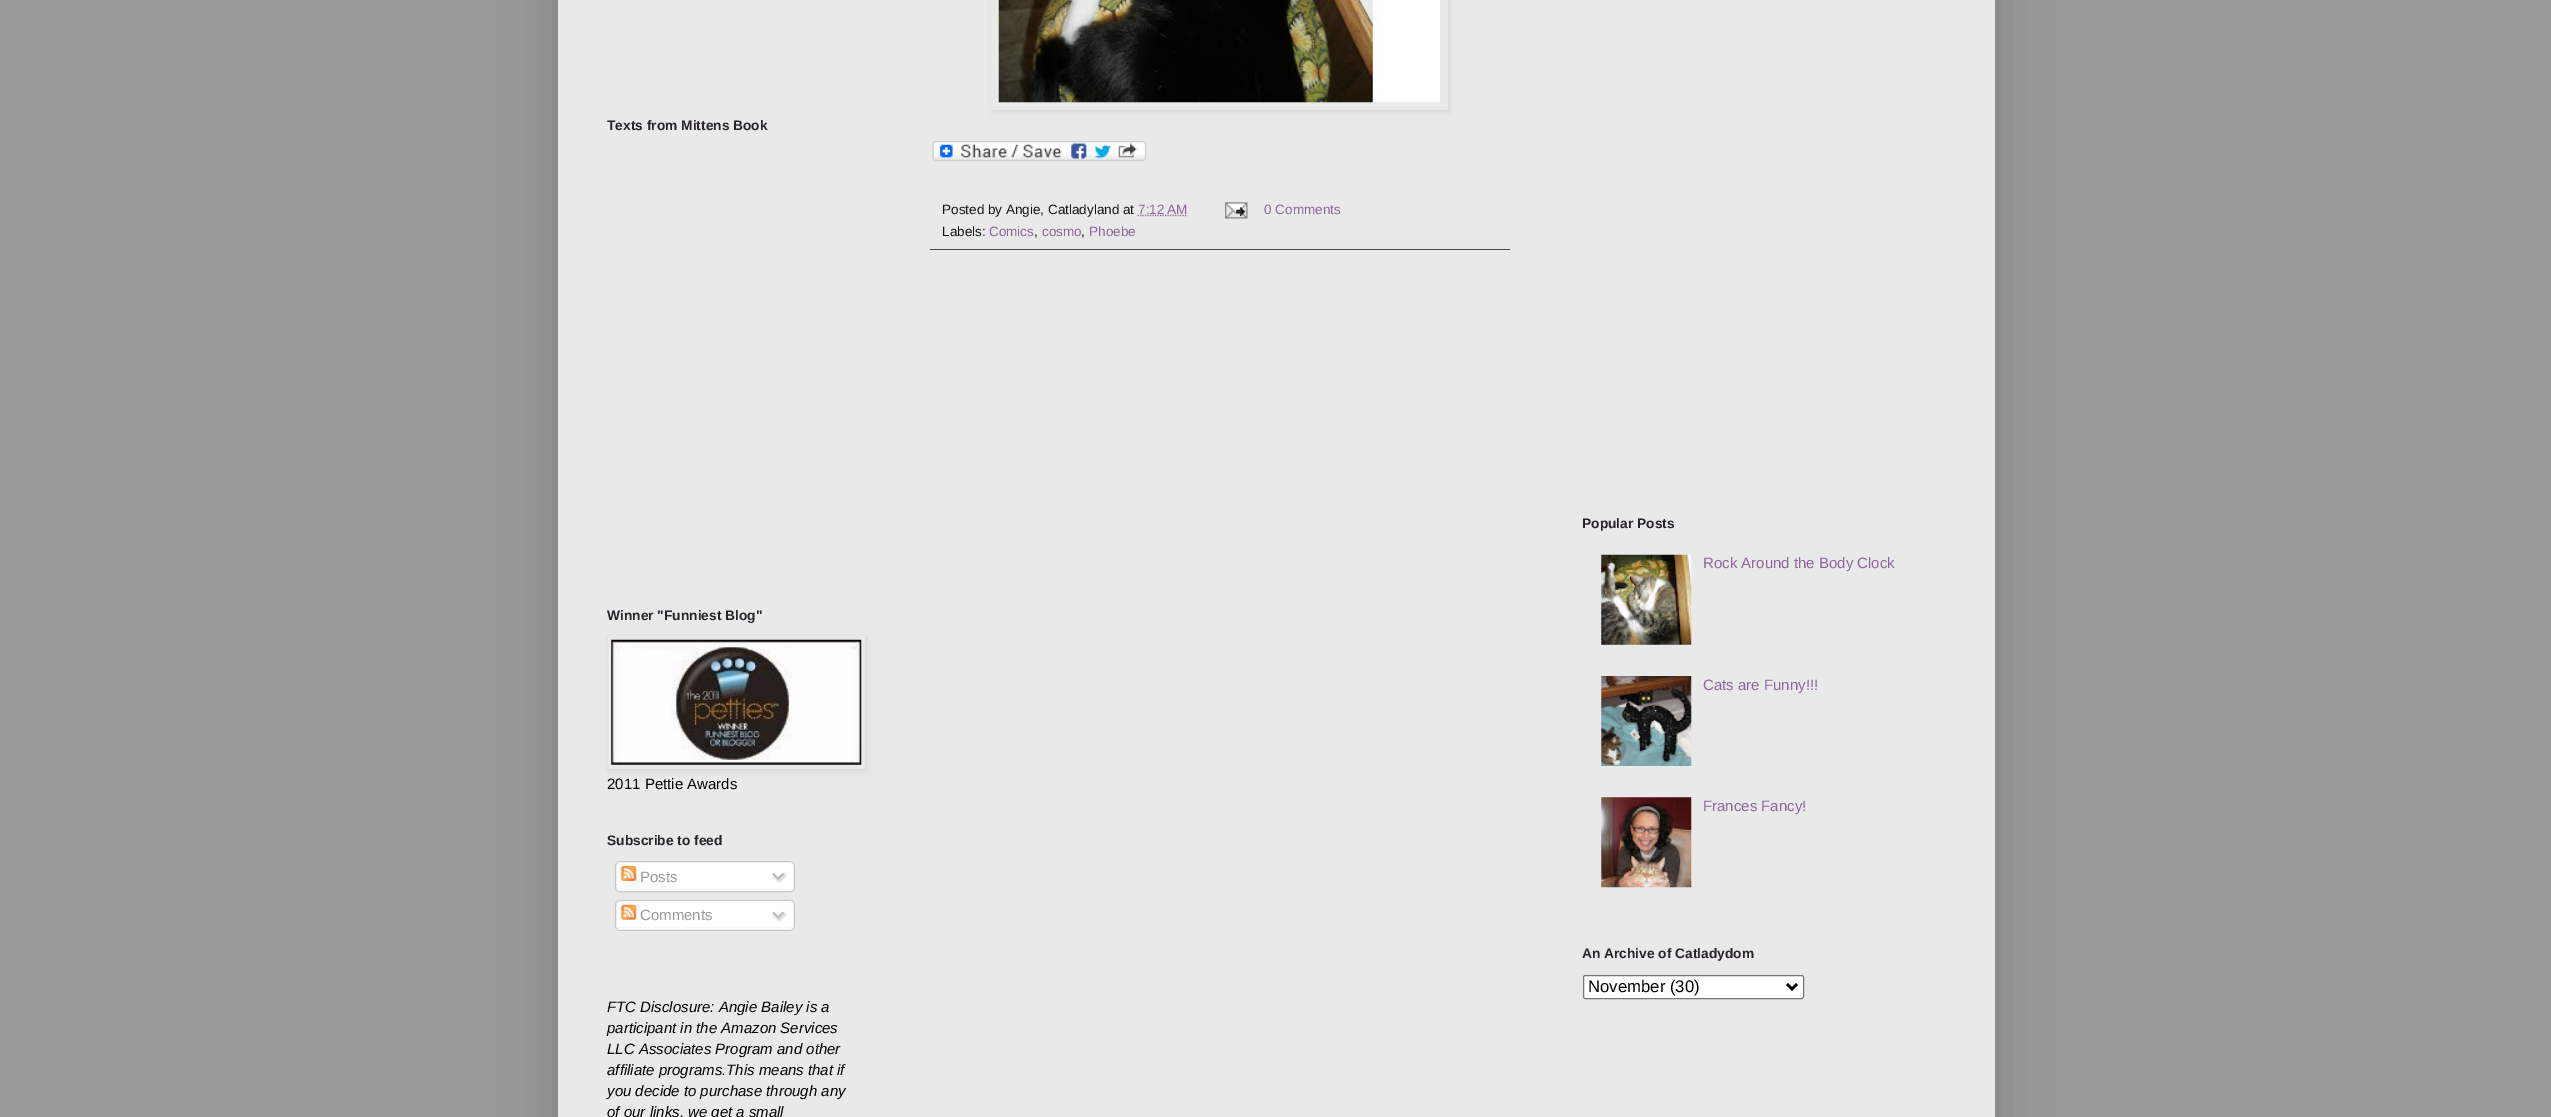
%!PS
<< /PageSize [2551 1117] /PageUsesTransparency true >> setpagedevice
/rgb { dup -16 bitshift 255 div exch dup -8 bitshift 255 and 255 div exch 255 and 255 div setrgbcolor } def
/font { [ exch dup neg 0 0 3 -1 roll 0 0 ] selectfont } def
/text { moveto show } def
/alpha { dup .setfillconstantalpha .setstrokeconstantalpha } def
/roundrect { 5 dict begin { /r /h /w /y /x } { exch def } forall
  x r add y moveto x w add y 2 copy h add r arct x w add y h add x 1 index r arct
  x y h add x y r arct x y 2 copy exch w add exch r arct closepath end } def
/shadow { 12 dict begin { /a /b /q /h /w /y /x } { exch def } forall gsave /was 0 def
  9 -2 -9 { dup b mul 4 div /e exch def 1 sub .425 mul 2.718 exch exp 1 add a .99 .min exch div /now exch def
    1 1 now sub 1 was sub div sub alpha /was now def
    w h .min e 2 mul add 0 gt { x e sub y e sub w e 2 mul add h e 2 mul add
      q e add b .6 mul add w h .min 2 div e add .min 0 .max roundrect fill } if } for grestore end } def
/picture { 5 dict begin { /h /w /y /x /name } { exch def } forall
  gsave x y translate w h scale
  w h 8 [w 0 0 h 0 0] name (r) file false 3 colorimage grestore end } def
0 .pushpdf14devicefilter
0 1117 translate 1 -1 scale
4 setmiterlimit
/s1 { /LiberationSans-Bold 13.75 font 16#29242B rgb } def
/s2 { /LiberationSans-Regular 15 font 16#000000 rgb } def
/s3 { /LiberationSans-Regular 15 font 16#999999 rgb } def
/s4 { /LiberationSans-Italic 15 font 16#000000 rgb } def
/s5 { /LiberationSans-Regular 13.5 font 16#151415 rgb } def
/s6 { /LiberationSans-Regular 13.5 font 16#8D649D rgb } def
/s7 { /LiberationSans-Regular 15 font 16#8D649D rgb } def
/s8 { /LiberationSans-Regular 16.75 font 16#000000 rgb } def
16#999999 rgb
0 0 2551 1117 rectfill
16#000000 rgb
558 -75 1437 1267 0 25 0.15 shadow
16#E9E9E9 rgb
558 0 1437 1117 rectfill
s1
(Texts from Mittens Book) 607 130 text
(Winner "Funniest Blog") 607 620 text
16#000000 rgb
609 638 257 132 0 3 0.1 shadow
16#E9E9E9 rgb
608 636 257 133 rectfill
(pic1.raw) 611 639 251 126 picture
s2
(2011 Pettie Awards) 607 789 text
s1
(Subscribe to feed) 607 845 text
(pic2.raw) 615 861 180 28 picture
(pic3.raw) 621 866 16 15 picture
s3
(Posts) 640 882 text
(pic4.raw) 771 872 17 12 picture
(pic5.raw) 615 888 180 5 picture
(pic6.raw) 615 899 180 29 picture
(pic7.raw) 621 904 16 16 picture
(Comments) 640 920 text
(pic8.raw) 771 911 17 11 picture
(pic9.raw) 615 927 180 4 picture
s4
(FTC Disclosure: Angie Bailey is a) 607 1012 text
(participant in the Amazon Services) 607 1033 text
(LLC Associates Program and other) 607 1054 text
(affiliate programs.This means that if) 607 1075 text
(you decide to purchase through any) 607 1096 text
(of our links, we get a small) 607 1117 text
993 -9 456 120 0 3 0.1 shadow
16#E9E9E9 rgb
991 0 457 110 rectfill
(pic10.raw) 998 0 442 103 picture
(pic11.raw) 932 141 215 20 picture
16#494949 rgb
930 249 580 1 rectfill
s5
(Posted by Angie, Catladyland at) 942 214 text
s6
(7:12 AM) 1138 214 text
1.2 setlinewidth
[1.25 1.25] 0 setdash
1137.5 215.5 moveto 1187 215.5 lineto stroke
(pic12.raw) 1225 202 23 17 picture
(0 Comments) 1264 214 text
s5
(Labels:) 942 236 text
s6
(Comics) 989 236 text
s5
(,) 1034 236 text
s6
(cosmo) 1042 236 text
s5
(,) 1081 236 text
s6
(Phoebe) 1089 236 text
s1
(Popular Posts) 1582 528 text
(pic13.raw) 1601 554 91 91 picture
s7
(Rock Around the Body Clock) 1703 568 text
(pic14.raw) 1601 676 91 90 picture
(Cats are Funny!!!) 1703 690 text
(pic15.raw) 1601 797 91 91 picture
(Frances Fancy!) 1703 811 text
s1
(An Archive of Catladydom) 1582 958 text
16#FFFFFF rgb
1583.5 975.5 220 23 2 roundrect gsave fill grestore
16#767676 rgb
1 setlinewidth
[] 0 setdash
stroke
16#000000 rgb
2.5 setlinewidth
1787 984 moveto 1792 989 lineto 1797 984 lineto stroke
s8
(November \(30\)) 1588 992 text
.poppdf14devicefilter showpage
